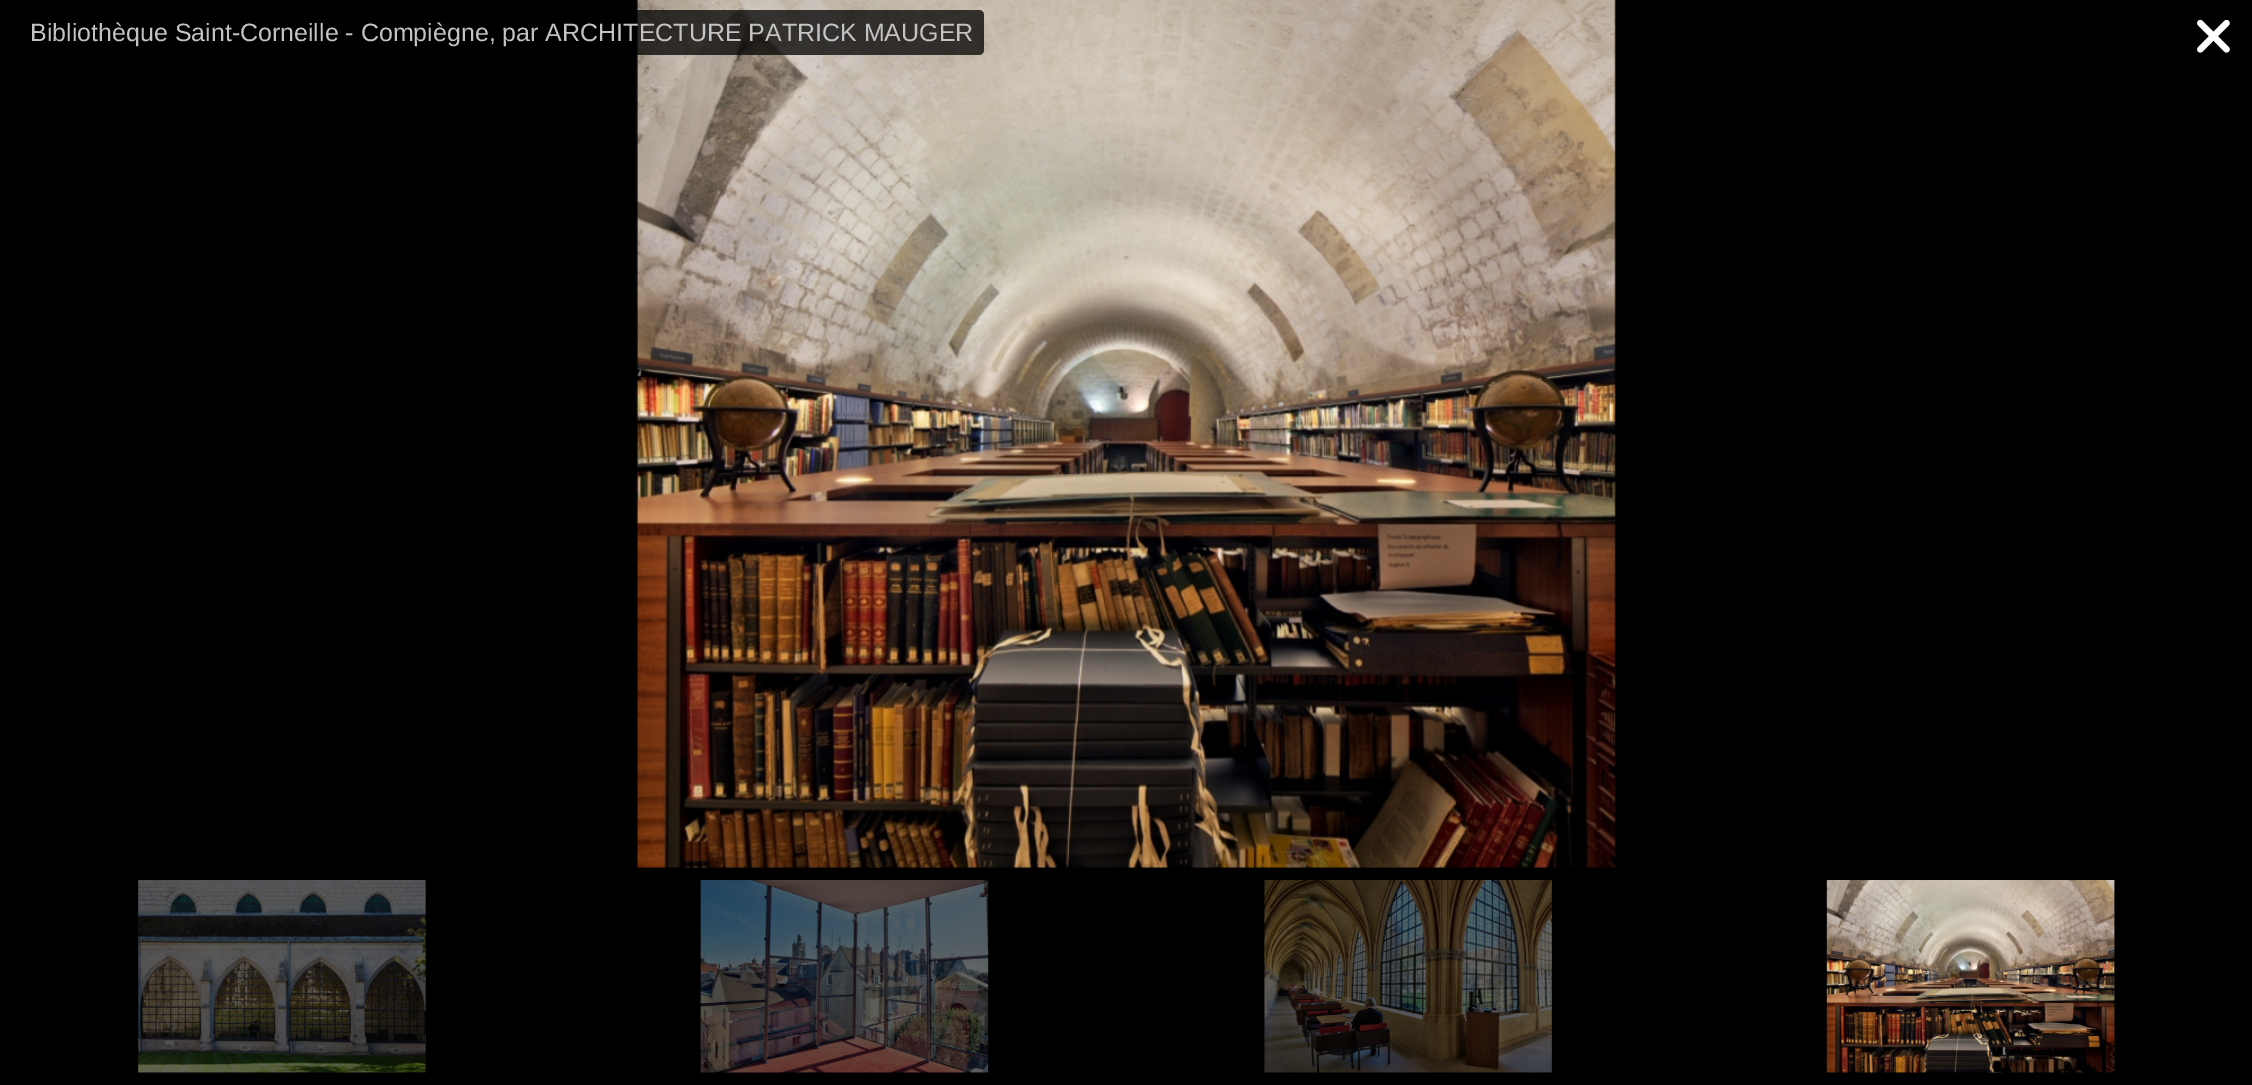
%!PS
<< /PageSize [2252 1085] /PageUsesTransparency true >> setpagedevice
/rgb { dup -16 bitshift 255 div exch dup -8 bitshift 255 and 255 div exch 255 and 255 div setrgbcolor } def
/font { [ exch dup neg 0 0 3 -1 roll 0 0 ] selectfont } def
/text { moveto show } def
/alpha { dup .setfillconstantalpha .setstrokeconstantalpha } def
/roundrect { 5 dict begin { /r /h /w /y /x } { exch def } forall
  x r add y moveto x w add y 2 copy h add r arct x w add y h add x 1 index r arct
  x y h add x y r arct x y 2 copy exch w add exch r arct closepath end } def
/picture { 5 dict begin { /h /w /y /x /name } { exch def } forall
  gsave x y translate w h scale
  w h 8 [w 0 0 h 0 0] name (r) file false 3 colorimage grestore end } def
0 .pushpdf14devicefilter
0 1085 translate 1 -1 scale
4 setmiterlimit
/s1 { /LiberationSans-Regular 25 font 16#C3C3C3 rgb } def
16#000000 rgb
0 0 2252 1085 rectfill
(pic1.raw) 636 0 980 868 picture
0.75 alpha
20 10 964 45 5 roundrect fill
1 alpha
s1
(Bibliothèque Saint-Corneille - Compiègne, par ARCHITECTURE PATRICK MAUGER) 30 41 text
(pic2.raw) 2197 19 33 34 picture
(pic3.raw) 138 880 288 193 picture
(pic4.raw) 700 880 289 193 picture
(pic5.raw) 1264 880 288 193 picture
(pic6.raw) 1826 880 289 193 picture
.poppdf14devicefilter showpage
